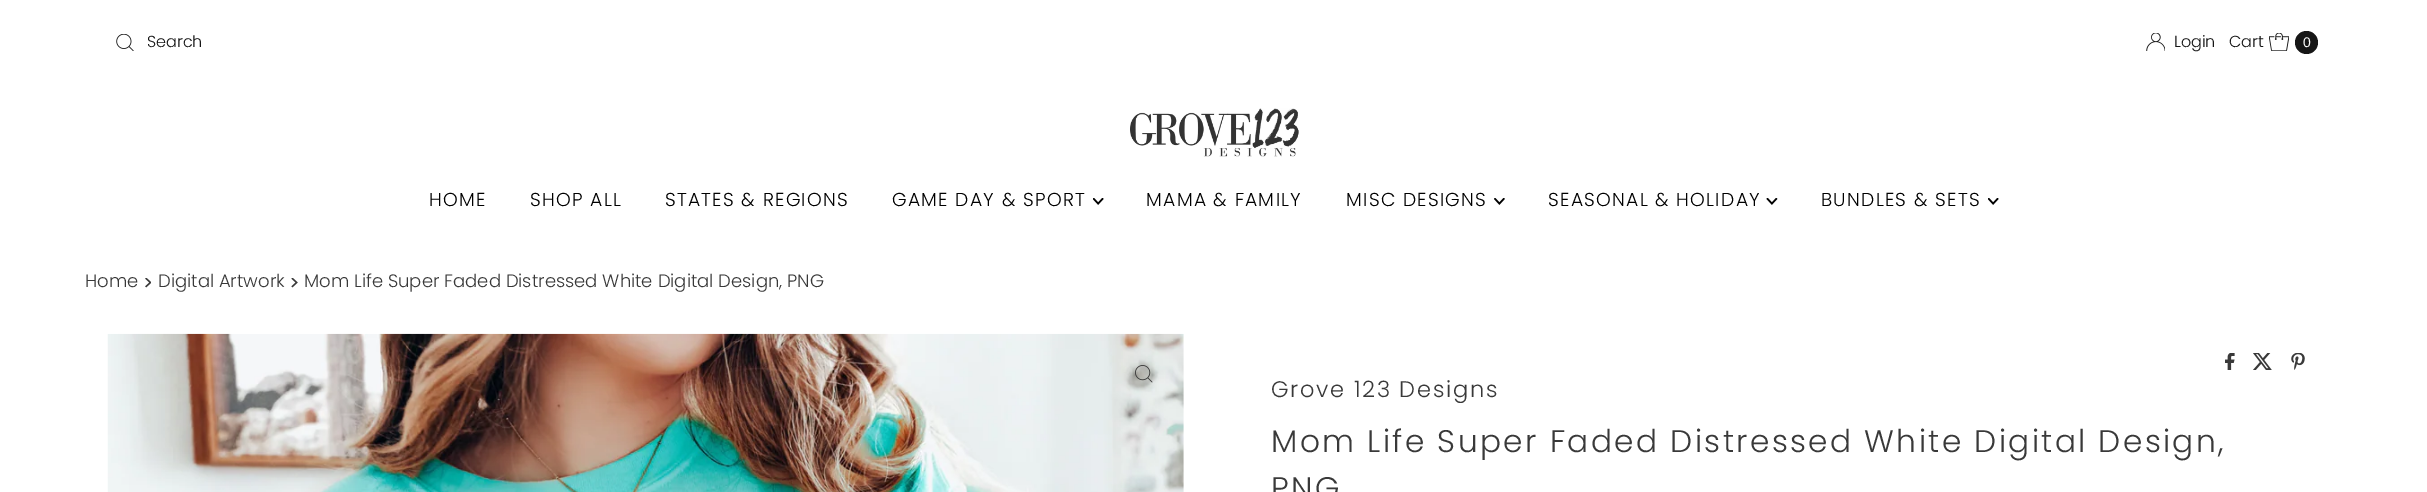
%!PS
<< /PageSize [2427 492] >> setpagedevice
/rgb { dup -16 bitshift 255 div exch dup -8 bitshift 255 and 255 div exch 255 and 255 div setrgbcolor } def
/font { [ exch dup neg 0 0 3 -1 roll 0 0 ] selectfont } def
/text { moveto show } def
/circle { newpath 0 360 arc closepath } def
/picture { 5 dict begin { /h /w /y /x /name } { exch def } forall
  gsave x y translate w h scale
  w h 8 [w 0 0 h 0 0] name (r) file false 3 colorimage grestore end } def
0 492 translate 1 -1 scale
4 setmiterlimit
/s1 { /Poppins-Light 16 font 16#161616 rgb } def
/s2 { /LiberationSans-Regular 14 font 16#FFFFFF rgb } def
/s3 { /Poppins-Light 18 font 16#393939 rgb } def
16#FFFFFF rgb
0 0 2427 492 rectfill
(pic1.raw) 116 34 18 17 picture
s1
(Search) 147 47 text
(pic2.raw) 2146 33 19 18 picture
(Login) 2174 47 text
(Cart) 2229 47 text
(pic3.raw) 2269 33 20 18 picture
2306.5 42.5 11.5 circle fill
s2
(0) 2303 47 text
(pic4.raw) 1130 108 169 49 picture
/Poppins-Light 18.75 font
16#000000 rgb
429 206 moveto 1.25 0 (HOME) ashow
530 206 moveto 1.25 0 (SHOP ALL) ashow
665 206 moveto 1.25 0 (STATES & REGIONS) ashow
892 206 moveto 1.25 0 (GAME DAY & SPORT) ashow
(pic5.raw) 1093 198 11 7 picture
1146 206 moveto 1.25 0 (MAMA & FAMILY) ashow
1346 206 moveto 1.25 0 (MISC DESIGNS) ashow
(pic6.raw) 1494 198 11 7 picture
1548 206 moveto 1.25 0 (SEASONAL & HOLIDAY) ashow
(pic7.raw) 1766 198 12 7 picture
1821 206 moveto 1.25 0 (BUNDLES & SETS) ashow
(pic5.raw) 1988 198 11 7 picture
s3
(Home) 85 287 text
(pic8.raw) 145 278 6 10 picture
(Digital Artwork) 158 287 text
(pic9.raw) 291 278 7 10 picture
(Mom Life Super Faded Distressed White Digital Design, PNG) 304 287 text
(pic10.raw) 107 333 1077 159 picture
(pic11.raw) 1135 365 18 18 picture
(pic12.raw) 2225 353 10 17 picture
(pic13.raw) 2253 353 19 17 picture
(pic14.raw) 2291 353 14 17 picture
/Poppins-Light 22.5 font
1271 397 moveto 1.7 0 (Grove 123 Designs) ashow
/Poppins-Light 31.25 font
1271 452 moveto 2.35 0 (Mom Life Super Faded Distressed White Digital Design,) ashow
1271 499 moveto 2.35 0 (PNG) ashow
showpage
